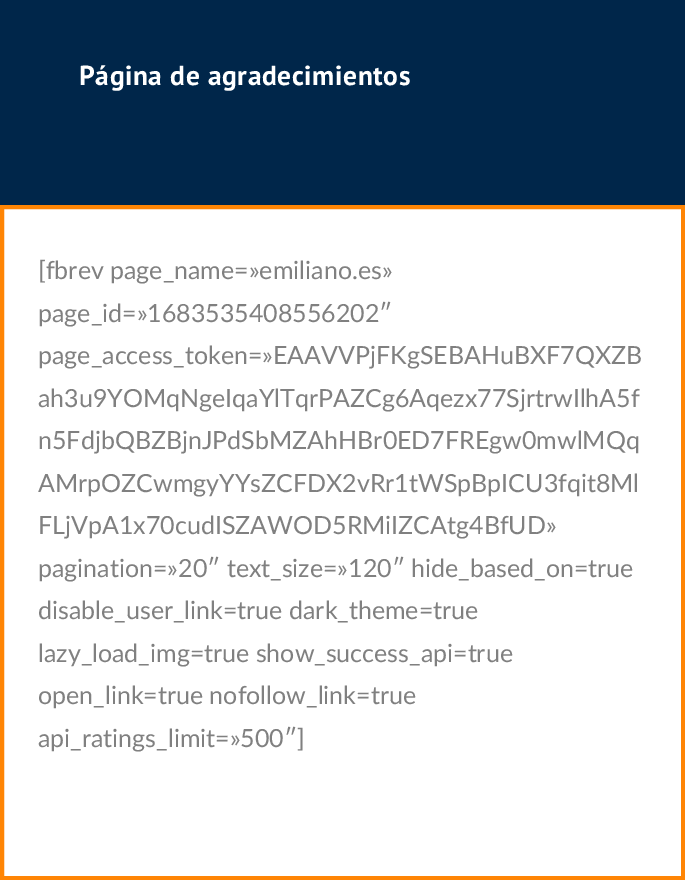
%!PS
<< /PageSize [685 880] >> setpagedevice
/rgb { dup -16 bitshift 255 div exch dup -8 bitshift 255 and 255 div exch 255 and 255 div setrgbcolor } def
/font { [ exch dup neg 0 0 3 -1 roll 0 0 ] selectfont } def
/text { moveto show } def
0 880 translate 1 -1 scale
4 setmiterlimit
/s1 { /Lato-Regular 25 font 16#808080 rgb } def
16#FFFFFF rgb
0 0 685 880 rectfill
16#00264A rgb
0 0 685 205 rectfill
/PTSans-Bold 27.5 font
16#FFFFFF rgb
79 85 moveto 0.6 0 (Página de agradecimientos) ashow
16#FF8504 rgb
4 setlinewidth
2 207 681 671 rectstroke
s1
([fbrev page_name=»emiliano.es») 38 279 text
(page_id=»1683535408556202″) 38 322 text
(page_access_token=»EAAVVPjFKgSEBAHuBXF7QXZB) 38 364 text
(ah3u9YOMqNgeIqaYlTqrPAZCg6Aqezx77SjrtrwIlhA5f) 38 407 text
(n5FdjbQBZBjnJPdSbMZAhHBr0ED7FREgw0mwlMQq) 38 449 text
(AMrpOZCwmgyYYsZCFDX2vRr1tWSpBpICU3fqit8Ml) 38 492 text
(FLjVpA1x70cudISZAWOD5RMiIZCAtg4BfUD») 38 534 text
(pagination=»20″ text_size=»120″ hide_based_on=true) 38 577 text
(disable_user_link=true dark_theme=true) 38 619 text
(lazy_load_img=true show_success_api=true) 38 662 text
(open_link=true nofollow_link=true) 38 704 text
(api_ratings_limit=»500″]) 38 747 text
showpage
